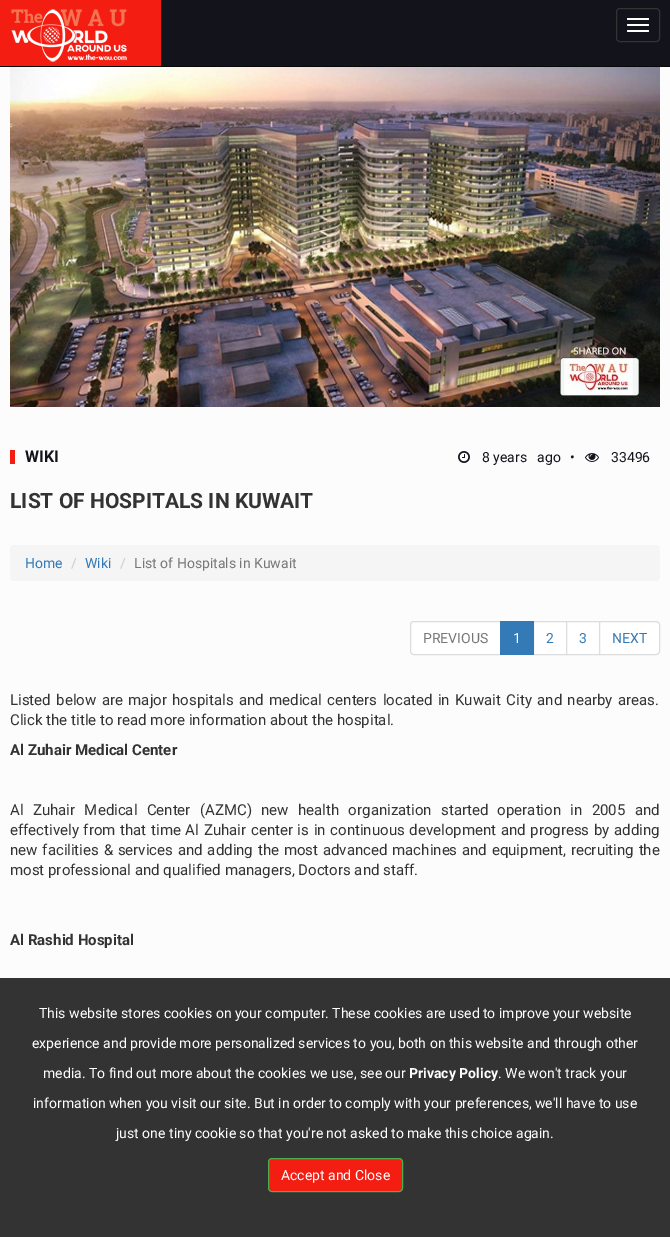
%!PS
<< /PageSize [670 1237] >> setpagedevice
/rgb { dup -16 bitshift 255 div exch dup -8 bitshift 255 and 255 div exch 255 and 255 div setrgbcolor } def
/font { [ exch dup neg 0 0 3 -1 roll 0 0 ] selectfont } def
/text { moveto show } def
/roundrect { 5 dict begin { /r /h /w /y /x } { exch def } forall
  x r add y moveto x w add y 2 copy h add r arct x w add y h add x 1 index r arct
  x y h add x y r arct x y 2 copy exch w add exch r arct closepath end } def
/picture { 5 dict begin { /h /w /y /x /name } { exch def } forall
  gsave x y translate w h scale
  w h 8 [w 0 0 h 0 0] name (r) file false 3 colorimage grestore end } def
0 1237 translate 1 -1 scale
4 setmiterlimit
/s1 { /Roboto-Bold 16 font 16#13141B rgb } def
/s2 { /Roboto-Regular 14 font 16#13141B rgb } def
/s3 { /Roboto-Bold 21 font 16#333333 rgb } def
/s4 { /Roboto-Regular 14 font 16#337AB7 rgb } def
/s5 { /Roboto-Regular 14 font 16#CCCCCC rgb } def
/s6 { /Roboto-Regular 14 font 16#777777 rgb } def
/s7 { /Roboto-Regular 14 font 16#FFFFFF rgb } def
/s8 { /Roboto-Regular 15 font 16#333333 rgb } def
/s9 { /Roboto-Bold 15 font 16#333333 rgb } def
/s10 { /Roboto-Bold 14 font 16#FFFFFF rgb } def
16#FCFCFC rgb
0 0 670 1237 rectfill
16#13141B rgb
161 0 509 66 rectfill
16#080808 rgb
0 66 670 1 rectfill
16#F31D12 rgb
0 0 161 66 rectfill
(pic1.raw) 11 9 116 53 picture
16#333333 rgb
616.5 8.5 43 33 3.5 roundrect stroke
16#FFFFFF rgb
627 18 22 2 1 roundrect fill
627 24 22 2 1 roundrect fill
627 30 22 2 1 roundrect fill
(pic2.raw) 10 67 650 340 picture
16#F31D12 rgb
10 450 5 14 rectfill
s1
(WIKI) 25 462 text
(pic3.raw) 458 451 12 12 picture
s2
(8 years   ago) 482 462 text
(•) 570 462 text
(pic4.raw) 585 453 14 9 picture
(33496) 611 462 text
s3
(LIST OF HOSPITALS IN KUWAIT) 10 508 text
16#F5F5F5 rgb
10 545 650 36 4 roundrect fill
s4
(Home) 25 568 text
s5
(/) 71 568 text
s4
(Wiki) 85 568 text
s5
(/) 120 568 text
s6
(List of Hospitals in Kuwait) 134 568 text
16#FFFFFF rgb
414 621.5 moveto 500.5 621.5 lineto 500.5 654.5 lineto 414 654.5 lineto 412 654.5 410.5 653 410.5 651 curveto 410.5 625 lineto 410.5 623 412 621.5 414 621.5 curveto closepath gsave fill grestore
16#DDDDDD rgb
stroke
s6
(PREVIOUS) 423 643 text
16#FFFFFF rgb
533.5 621.5 moveto 566.5 621.5 lineto 566.5 654.5 lineto 533.5 654.5 lineto closepath gsave fill grestore
16#DDDDDD rgb
stroke
16#337AB7 rgb
500 621 34 34 rectfill
s7
(1) 513 643 text
s4
(2) 546 643 text
16#FFFFFF rgb
566.5 621.5 moveto 599.5 621.5 lineto 599.5 654.5 lineto 566.5 654.5 lineto closepath gsave fill grestore
16#DDDDDD rgb
stroke
s4
(3) 579 643 text
16#FFFFFF rgb
599.5 621.5 moveto 656 621.5 lineto 658 621.5 659.5 623 659.5 625 curveto 659.5 651 lineto 659.5 653 658 654.5 656 654.5 curveto 599.5 654.5 lineto closepath gsave fill grestore
16#DDDDDD rgb
stroke
s4
(NEXT) 612 643 text
/Roboto-Regular 15 font
16#333333 rgb
10 705 moveto 1.75 0 32 (Listed below are major hospitals and medical centers located in Kuwait City and nearby areas.) widthshow
(Click the title to read more information about the hospital.) 10 725 text
s9
(Al Zuhair Medical Center) 10 755 text
/Roboto-Regular 15 font
10 815 moveto 5.6 0 32 (Al Zuhair Medical Center \(AZMC\) new health organization started operation in 2005 and) widthshow
10 835 moveto 1 0 32 (effectively from that time Al Zuhair center is in continuous development and progress by adding) widthshow
10 855 moveto 1.1 0 32 (new facilities & services and adding the most advanced machines and equipment, recruiting the) widthshow
(most professional and qualified managers, Doctors and staff.) 10 875 text
s9
(Al Rashid Hospital) 10 945 text
0 978 670 259 rectfill
s7
(This website stores cookies on your computer. These cookies are used to improve your website) 39 1018 text
(experience and provide more personalized services to you, both on this website and through other) 32 1048 text
(media. To find out more about the cookies we use, see our) 43 1078 text
s10
(Privacy Policy) 409 1078 text
s7
(. We won't track your) 498 1078 text
(information when you visit our site. But in order to comply with your preferences, we'll have to use) 33 1108 text
(just one tiny cookie so that you're not asked to make this choice again.) 116 1138 text
16#F31D12 rgb
268.5 1158.5 134 33 3.5 roundrect gsave fill grestore
16#4CAE4C rgb
stroke
s7
(Accept and Close) 281 1180 text
showpage
